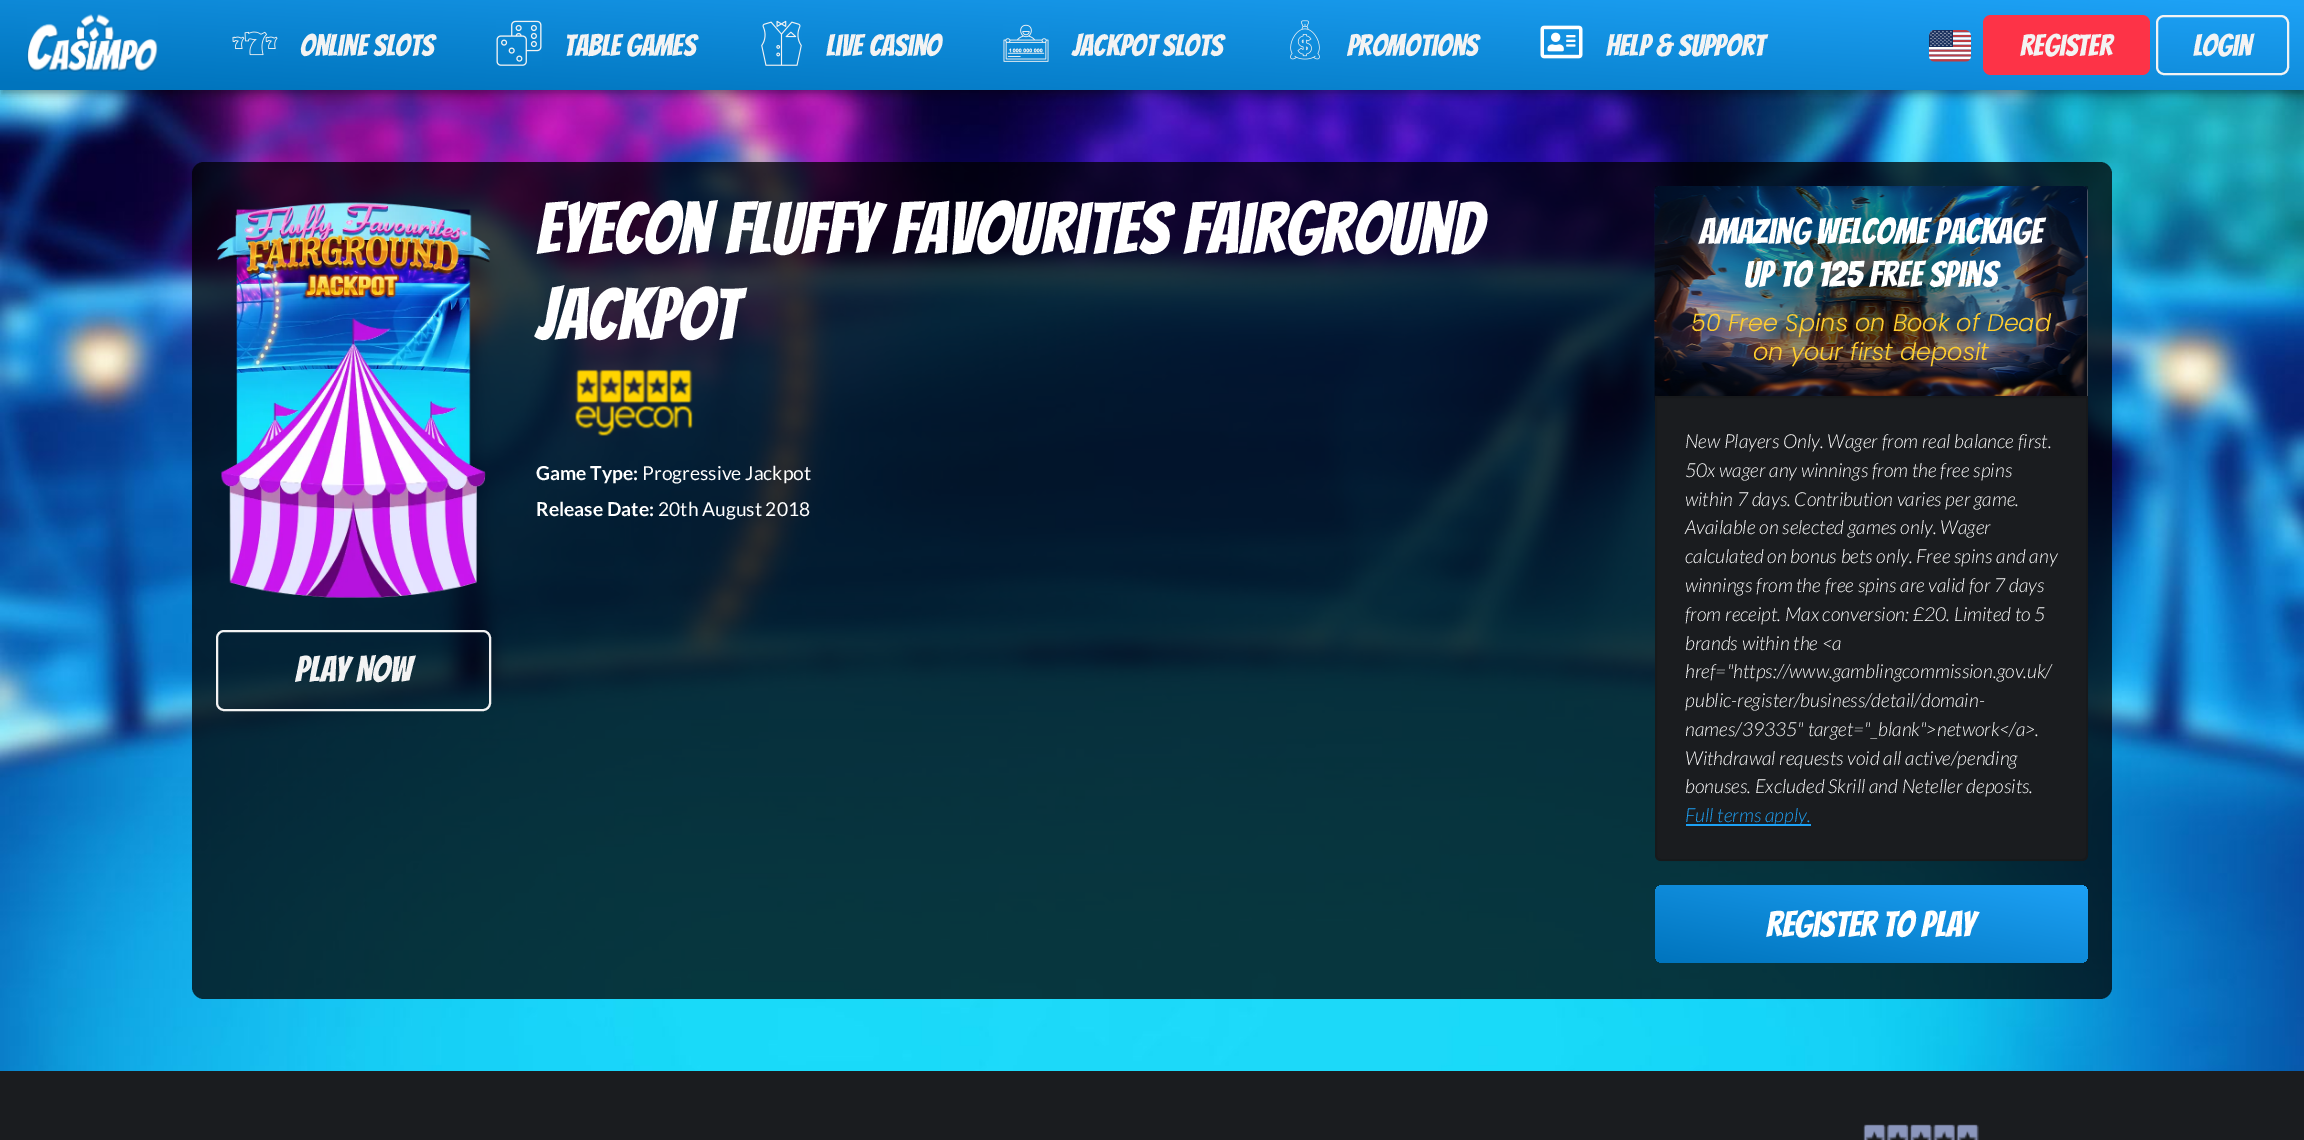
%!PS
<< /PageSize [2304 1140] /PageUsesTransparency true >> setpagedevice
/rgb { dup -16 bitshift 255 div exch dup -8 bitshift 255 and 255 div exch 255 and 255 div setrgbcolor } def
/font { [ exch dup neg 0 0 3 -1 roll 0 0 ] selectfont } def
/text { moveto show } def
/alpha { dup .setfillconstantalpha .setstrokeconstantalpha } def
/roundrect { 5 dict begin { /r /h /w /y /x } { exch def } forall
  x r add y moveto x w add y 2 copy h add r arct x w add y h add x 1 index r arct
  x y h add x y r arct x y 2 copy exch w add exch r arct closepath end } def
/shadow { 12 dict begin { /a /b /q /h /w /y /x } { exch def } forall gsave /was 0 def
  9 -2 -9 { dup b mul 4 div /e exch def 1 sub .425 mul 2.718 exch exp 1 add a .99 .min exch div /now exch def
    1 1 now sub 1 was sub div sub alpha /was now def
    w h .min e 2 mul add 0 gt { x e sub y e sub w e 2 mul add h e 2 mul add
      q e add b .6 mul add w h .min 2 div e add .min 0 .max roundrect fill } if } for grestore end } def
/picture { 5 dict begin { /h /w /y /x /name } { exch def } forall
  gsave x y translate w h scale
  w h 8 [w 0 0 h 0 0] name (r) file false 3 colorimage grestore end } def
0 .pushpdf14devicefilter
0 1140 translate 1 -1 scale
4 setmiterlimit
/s1 { /Bangers-Regular 30 font 16#F3F3F3 rgb } def
/s2 { /Bangers-Regular 36 font 16#F3F3F3 rgb } def
/s3 { /Bangers-Regular 72 font 16#FFFFFF rgb } def
/s4 { /Lato-Bold 19.25 font 16#FFFFFF rgb } def
/s5 { /Lato-Regular 19.25 font 16#FFFFFF rgb } def
/s6 { /Bangers-Regular 36 font 16#FFFFFF rgb } def
/s7 { /Poppins-LightItalic 24 font 16#FFCE2F rgb } def
/s8 { /Lato-LightItalic 19.25 font 16#FFFFFF rgb } def
/s9 { /Lato-LightItalic 19.25 font 16#1DA1F5 rgb } def
16#FFFFFF rgb
0 0 2304 1140 rectfill
(pic9.raw) 0 90 2304 981 picture
16#000000 rgb
0 2 2304 90 0 7.5 0.12 shadow
0 6 2304 90 0 4 0.14 shadow
2 5 2301 87 0 3 0.2 shadow
gsave 0 0 moveto 2304 0 lineto 2304 90 lineto 0 90 lineto closepath clip newpath
<< /ShadingType 2 /ColorSpace /DeviceRGB /Coords [1148 135 1156 -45] /Extend [true true] /Function << /FunctionType 2 /Domain [0 1] /C0 [0 0.455 0.741] /C1 [0.114 0.631 0.961] /N 1 >> >> shfill grestore
(pic1.raw) 27 14 131 58 picture
(pic2.raw) 232 31 46 25 picture
s1
(Online Slots) 300 56 text
(pic3.raw) 496 20 46 46 picture
(Table Games) 564 56 text
(pic4.raw) 761 20 41 46 picture
(Live Casino) 826 56 text
(pic5.raw) 1003 24 46 38 picture
(Jackpot Slots) 1072 56 text
(pic6.raw) 1290 20 30 40 picture
(Promotions) 1347 56 text
(pic7.raw) 1540 25 43 34 picture
(Help & Support) 1606 56 text
(pic8.raw) 1929 30 42 32 picture
16#FD3347 rgb
1983 15 167 60 8 roundrect fill
s1
(Register) 2020 56 text
2 setlinewidth
2157 16 131 58 7 roundrect stroke
(Login) 2193 56 text
0.75 alpha
16#000000 rgb
192 162 1920 837 12 roundrect fill
1 alpha
(pic10.raw) 217 201 274 397 picture
16#F3F3F3 rgb
217 631 273 79 7 roundrect stroke
s2
(Play Now) 295 682 text
s3
(Eyecon Fluffy Favourites Fairground) 536 254 text
(Jackpot) 536 340 text
(pic11.raw) 575 369 118 67 picture
s4
(Game Type:) 536 480 text
s5
(Progressive Jackpot) 642 480 text
s4
(Release Date:) 536 516 text
s5
(20th August 2018) 658 516 text
1655 186 433 218 6 roundrect fill
(pic12.raw) 1654 186 434 216 picture
0.25 alpha
16#000000 rgb
1655 186 433 210 rectfill
1 alpha
s6
(Amazing Welcome Package) 1699 244 text
(Up To 125 Free Spins) 1744 287 text
s7
(50 Free Spins on Book of Dead) 1691 331 text
(on your first deposit) 1753 360 text
16#1A1C1F rgb
1655 396 moveto 2088 396 lineto 2088 855 lineto 2088 858.5 2085.5 861 2082 861 curveto 1661 861 lineto 1657.5 861 1655 858.5 1655 855 curveto closepath fill
0.12 alpha
16#000000 rgb
1656 397 moveto 2087 397 lineto 2087 855 lineto 2087 858 2085 860 2082 860 curveto 1661 860 lineto 1658 860 1656 858 1656 855 curveto closepath stroke
1 alpha
s8
(New Players Only. Wager from real balance first.) 1685 448 text
(50x wager any winnings from the free spins) 1685 477 text
(within 7 days. Contribution varies per game.) 1685 506 text
(Available on selected games only. Wager) 1685 534 text
(calculated on bonus bets only. Free spins and any) 1685 563 text
(winnings from the free spins are valid for 7 days) 1685 592 text
(from receipt. Max conversion: £20. Limited to 5) 1685 621 text
(brands within the <a) 1685 650 text
(href="https://www.gamblingcommission.gov.uk/) 1685 678 text
(public-register/business/detail/domain-) 1685 707 text
(names/39335" target="_blank">network</a>.) 1685 736 text
(Withdrawal requests void all active/pending) 1685 765 text
(bonuses. Excluded Skrill and Neteller deposits.) 1685 793 text
16#1DA1F5 rgb
1686 824 125 2 rectfill
(Full terms apply.) 1685 822 text
gsave 1655 885 433 78 8 roundrect clip newpath
<< /ShadingType 2 /ColorSpace /DeviceRGB /Coords [1858 1000 1885 848] /Extend [true true] /Function << /FunctionType 2 /Domain [0 1] /C0 [0 0.455 0.741] /C1 [0.114 0.631 0.961] /N 1 >> >> shfill grestore
s6
(Register to Play) 1766 937 text
16#1A1C1F rgb
0 1071 2304 69 rectfill
(pic13.raw) 1863 1124 116 16 picture
.poppdf14devicefilter showpage
